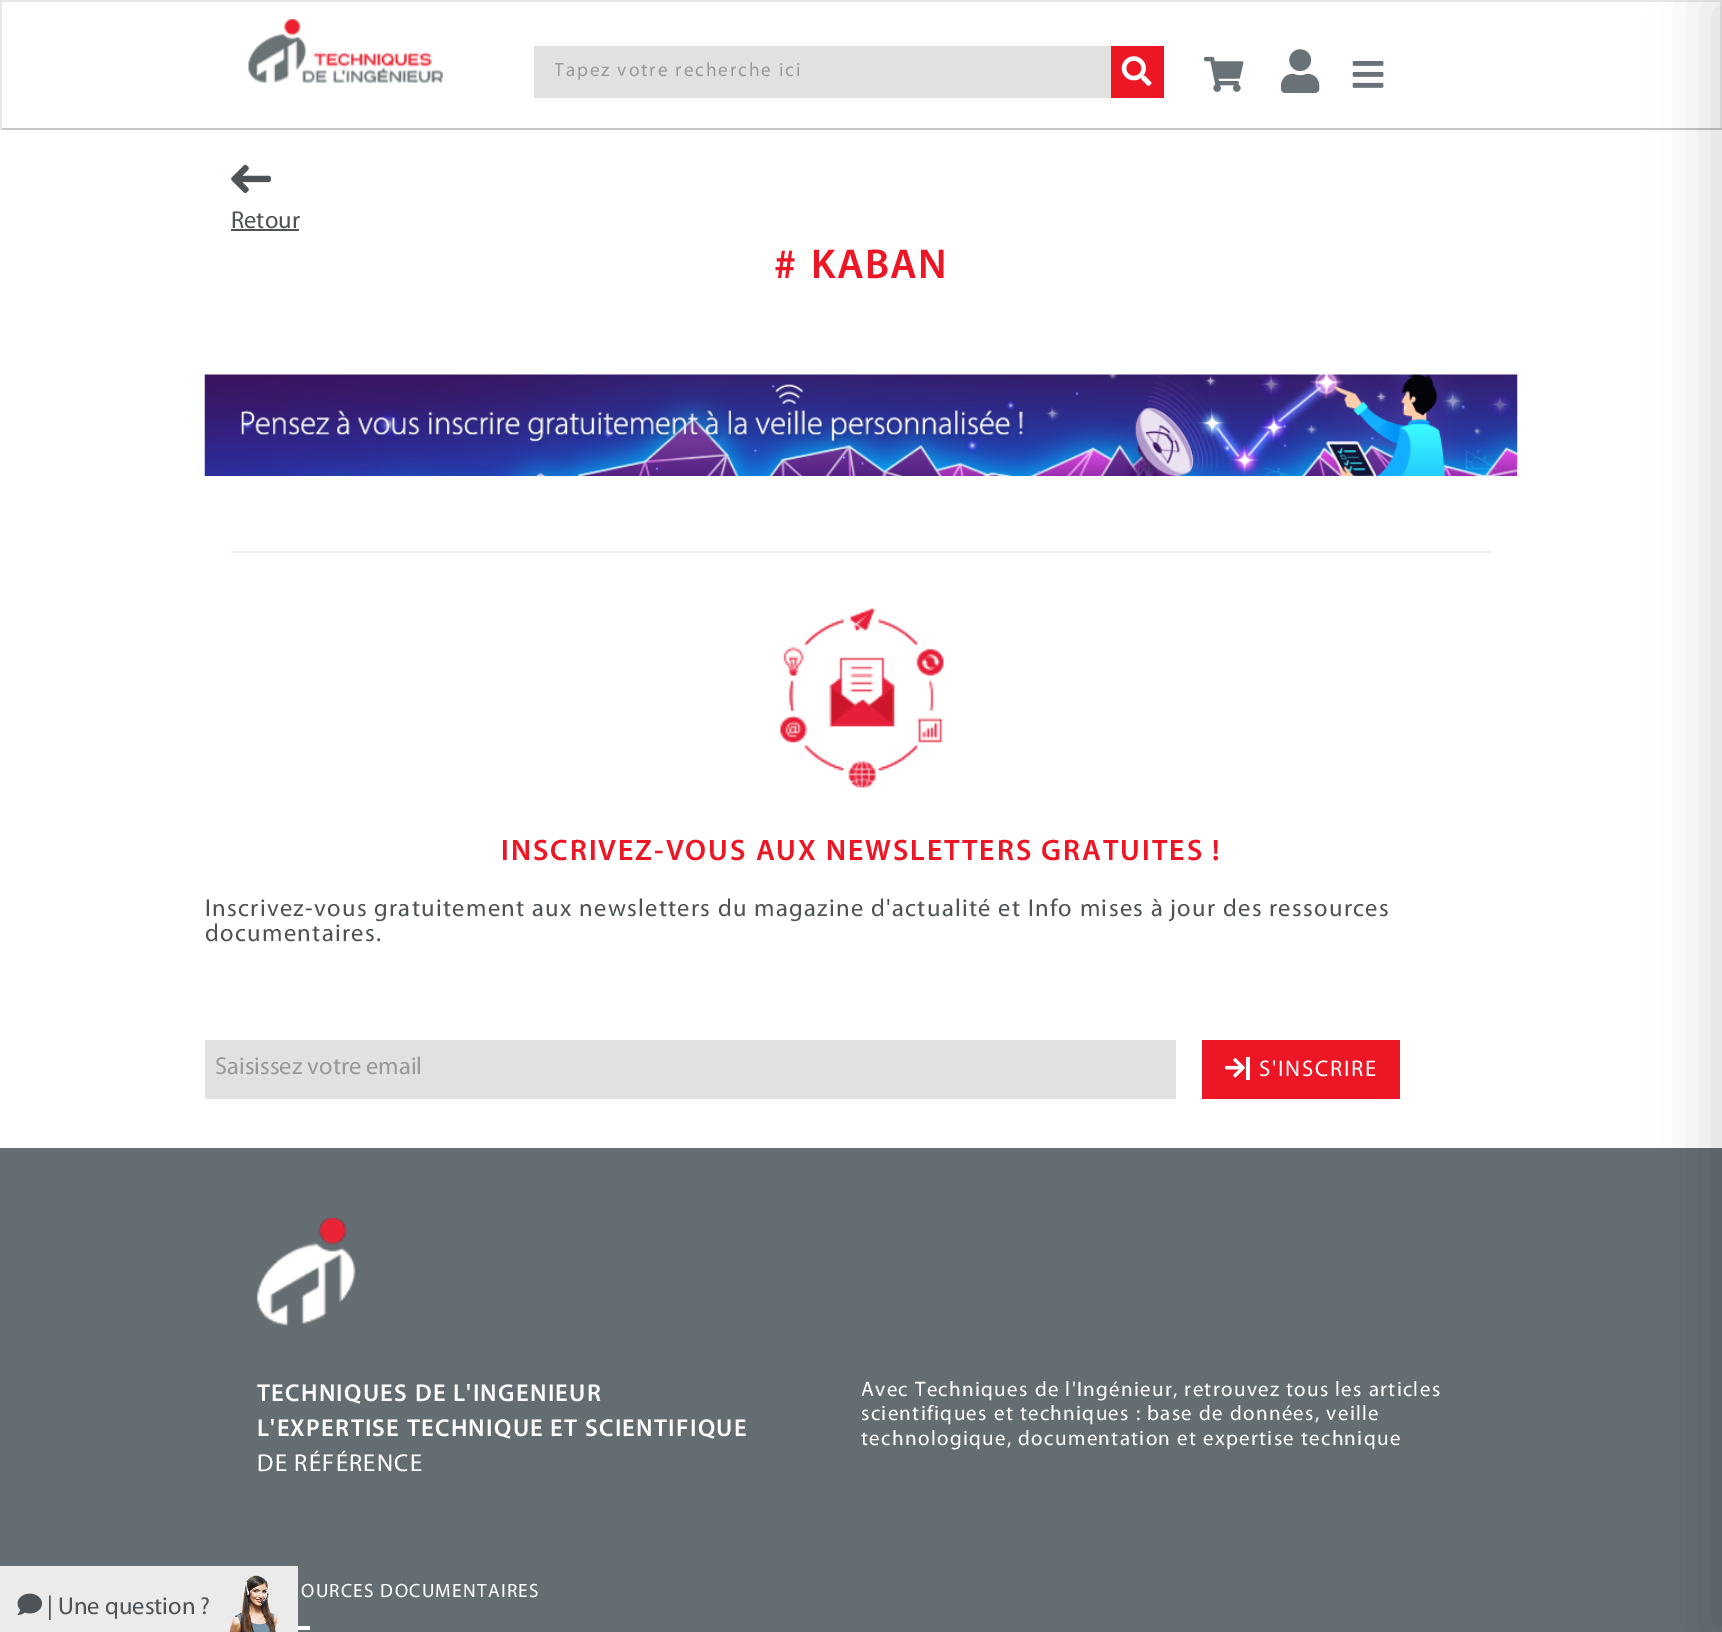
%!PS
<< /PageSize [1722 1632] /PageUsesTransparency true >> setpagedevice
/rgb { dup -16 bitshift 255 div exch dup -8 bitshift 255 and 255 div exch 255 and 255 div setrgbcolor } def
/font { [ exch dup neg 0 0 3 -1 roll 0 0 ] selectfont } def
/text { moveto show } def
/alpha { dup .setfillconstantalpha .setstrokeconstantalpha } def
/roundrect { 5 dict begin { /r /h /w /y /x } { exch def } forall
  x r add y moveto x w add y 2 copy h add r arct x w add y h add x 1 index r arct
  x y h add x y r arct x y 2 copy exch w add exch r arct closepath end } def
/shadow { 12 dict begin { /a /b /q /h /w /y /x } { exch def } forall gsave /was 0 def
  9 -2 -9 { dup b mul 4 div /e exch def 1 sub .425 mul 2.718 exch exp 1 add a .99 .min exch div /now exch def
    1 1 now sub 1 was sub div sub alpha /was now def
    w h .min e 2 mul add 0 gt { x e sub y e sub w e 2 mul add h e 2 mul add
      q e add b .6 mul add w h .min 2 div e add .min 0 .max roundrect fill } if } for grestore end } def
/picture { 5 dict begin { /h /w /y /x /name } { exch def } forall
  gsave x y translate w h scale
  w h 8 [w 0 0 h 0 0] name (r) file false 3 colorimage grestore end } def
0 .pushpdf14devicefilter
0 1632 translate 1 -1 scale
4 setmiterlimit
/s1 { /Myriad-Regular 24.5 font 16#4D5356 rgb } def
/s2 { /Myriad-Regular 24.5 font 16#999999 rgb } def
16#FFFFFF rgb
0 0 1722 1632 rectfill
16#E7E7E7 rgb
0 0 1722 2 rectfill
1720 0 2 130 rectfill
16#C6C6C6 rgb
0 128 1722 2 rectfill
16#E7E7E7 rgb
0 0 2 130 rectfill
(pic1.raw) 248 19 195 64 picture
16#E2E1E1 rgb
534 46 577 52 rectfill
gsave
555 61 535 23 rectclip
/Myriad-Regular 19.25 font
16#999999 rgb
554 76 moveto 1.95 0 (Tapez votre recherche ici) ashow
grestore
16#EC1625 rgb
1111 46 53 52 rectfill
(pic2.raw) 1121 56 31 30 picture
(pic3.raw) 1204 56 40 36 picture
(pic4.raw) 1281 49 39 44 picture
(pic5.raw) 1352 61 32 27 picture
16#646D72 rgb
0 1148 1722 484 rectfill
16#000000 rgb
1705 0 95 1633 0 26 0.12 shadow
(pic6.raw) 231 164 40 30 picture
s1
(Retour) 231 228 text
231 229 68 2 rectfill
/Myriad-SemiBold 42 font
16#EC1625 rgb
774 278 moveto 1.31 0 (#) ashow
811 278 moveto 1.31 0 (KABAN) ashow
(pic7.raw) 204 374 1314 102 picture
16#EEEEEE rgb
231 551 1260 2 rectfill
(pic8.raw) 780 608 164 180 picture
/Myriad-SemiBold 29.75 font
16#EC1625 rgb
501 860 moveto 1.95 0 (INSCRIVEZ-VOUS AUX NEWSLETTERS GRATUITES !) ashow
/Myriad-Regular 24.5 font
16#4D5356 rgb
205 916 moveto 1.31 0 (Inscrivez-vous gratuitement aux newsletters du magazine d'actualité et Info mises à jour des ressources) ashow
205 941 moveto 1.31 0 (documentaires.) ashow
16#E2E1E1 rgb
205 1040 971 59 rectfill
s2
(Saisissez votre email) 215 1074 text
16#EC1625 rgb
1202 1040 198 59 rectfill
16#FFFFFF rgb
1246 1057 4 23 rectfill
(pic9.raw) 1225 1058 20 20 picture
/Myriad-Regular 22.75 font
1259 1076 moveto 1.75 0 (S'INSCRIRE) ashow
16#EBEBEB rgb
0 1566 298 66 rectfill
(pic10.raw) 17 1593 25 22 picture
s1
(| Une question ?) 47 1614 text
(pic11.raw) 229 1575 49 57 picture
(pic12.raw) 257 1218 99 108 picture
/Myriad-SemiBold 24.5 font
16#FFFFFF rgb
257 1401 moveto 1.31 0 (TECHNIQUES DE L'INGENIEUR) ashow
257 1436 moveto 1.31 0 (L'EXPERTISE TECHNIQUE ET SCIENTIFIQUE) ashow
/Myriad-Regular 24.5 font
257 1471 moveto 1.31 0 (DE RÉFÉRENCE) ashow
/Myriad-Regular 21 font
861 1396 moveto 1.31 0 (Avec Techniques de l'Ingénieur, retrouvez tous les articles) ashow
861 1420 moveto 1.31 0 (scientifiques et techniques : base de données, veille) ashow
861 1445 moveto 1.31 0 (technologique, documentation et expertise technique) ashow
/Myriad-Regular 19.25 font
301 1597 moveto 1.31 0 (OURCES DOCUMENTAIRES) ashow
298 1626 12 4 rectfill
.poppdf14devicefilter showpage
